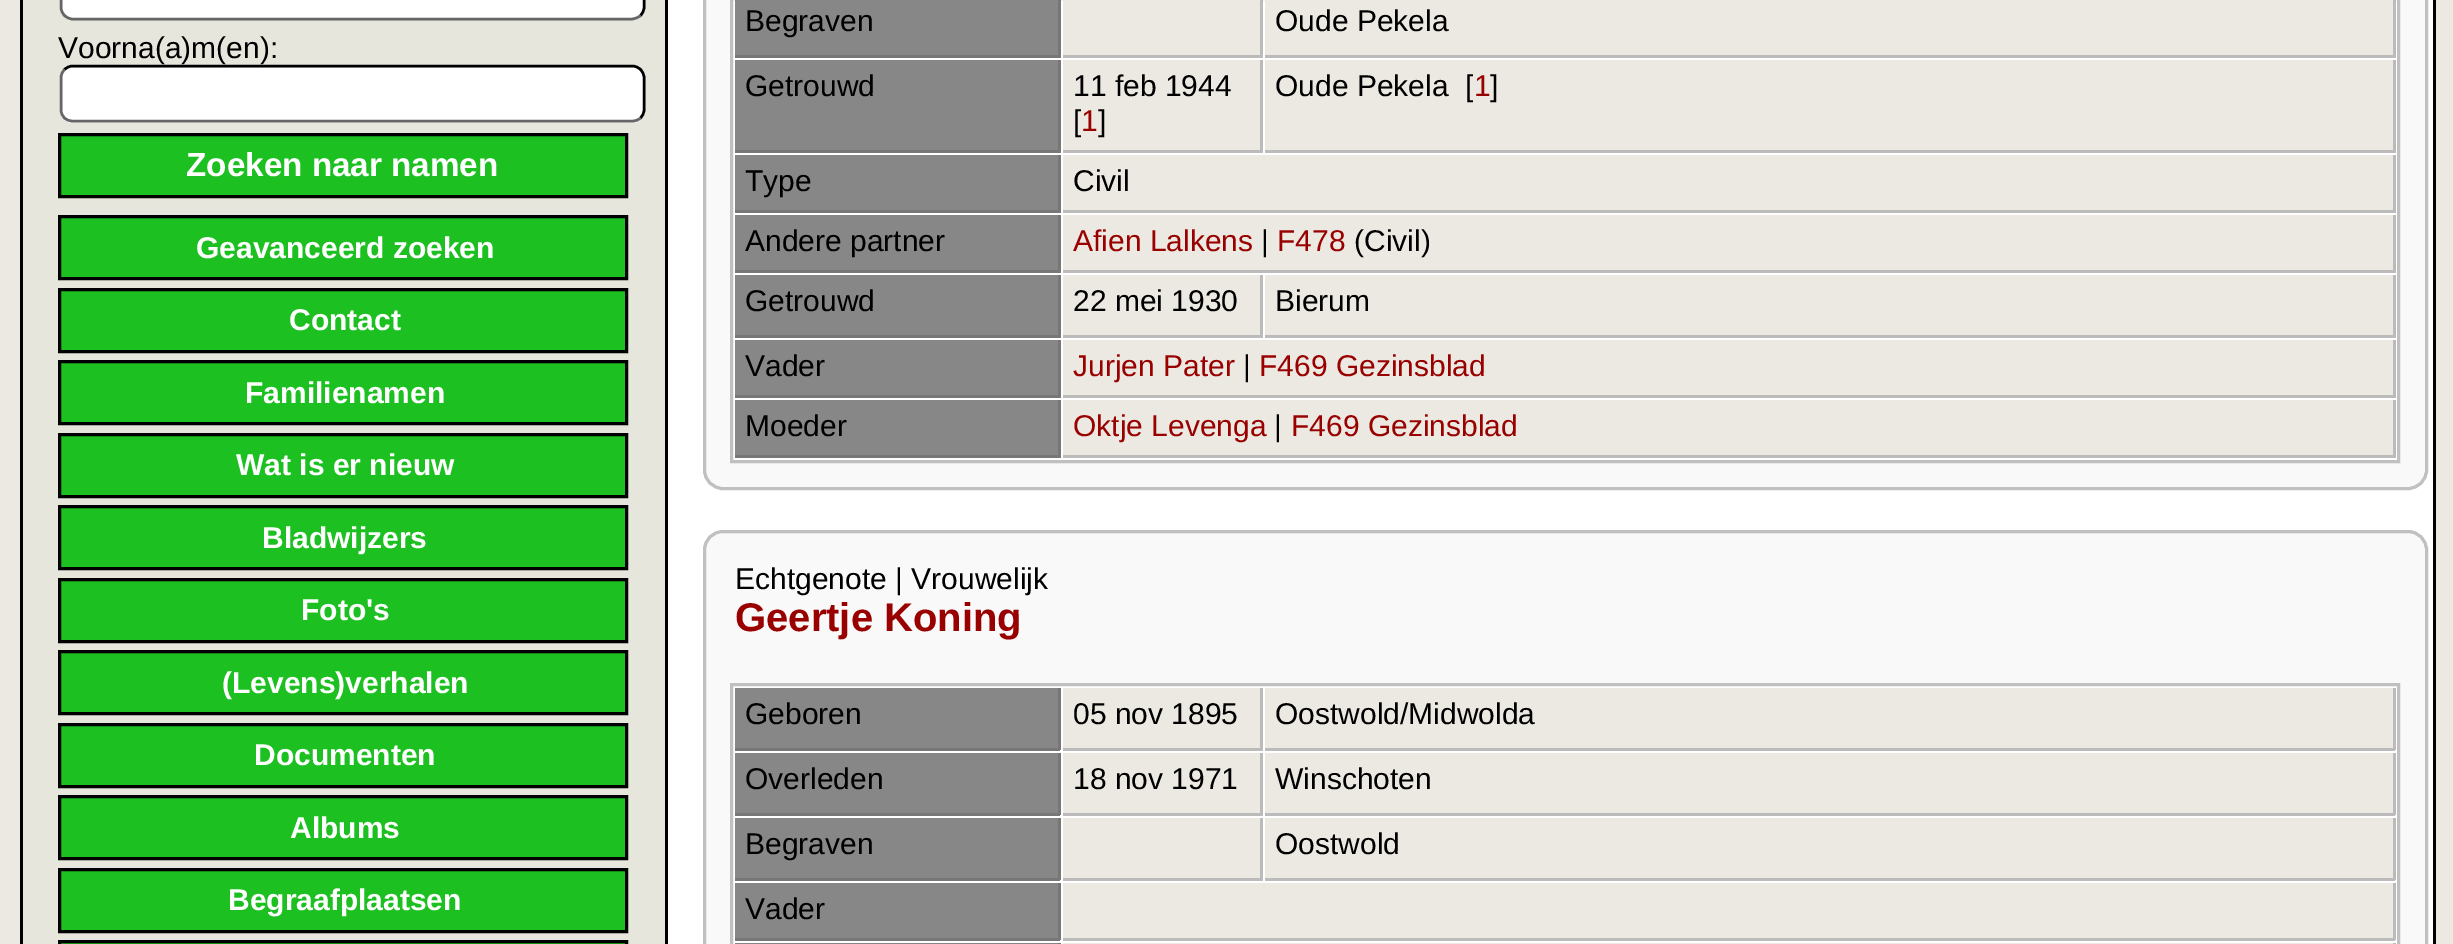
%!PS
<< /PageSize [2453 944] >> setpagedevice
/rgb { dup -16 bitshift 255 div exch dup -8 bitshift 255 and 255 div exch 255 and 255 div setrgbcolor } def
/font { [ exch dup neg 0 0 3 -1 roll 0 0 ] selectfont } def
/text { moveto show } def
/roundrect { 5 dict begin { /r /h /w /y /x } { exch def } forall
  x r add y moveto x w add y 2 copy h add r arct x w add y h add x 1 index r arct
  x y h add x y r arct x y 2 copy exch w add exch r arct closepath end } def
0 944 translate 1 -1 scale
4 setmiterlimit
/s1 { /LiberationSans-Regular 30 font 16#000000 rgb } def
/s2 { /LiberationSans-Bold 33.25 font 16#FFFFFF rgb } def
/s3 { /LiberationSans-Bold 30 font 16#FFFFFF rgb } def
/s4 { /LiberationSans-Regular 30 font 16#990000 rgb } def
/s5 { /LiberationSans-Bold 40 font 16#990000 rgb } def
16#EBE9E1 rgb
0 0 2453 944 rectfill
16#FFFFFF rgb
668 0 1765 944 rectfill
16#000000 rgb
2433 0 3 944 rectfill
20 0 3 944 rectfill
16#E7E6DD rgb
23 0 642 944 rectfill
16#000000 rgb
665 0 3 944 rectfill
16#FFFFFF rgb
60 -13 585 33 13 roundrect fill
16#000000 rgb
2.5 setlinewidth
64.5 -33 moveto 66.5 -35 69.5 -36 72.5 -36 curveto 632.5 -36 lineto 635.5 -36 638.5 -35 640.5 -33 curveto 642.5 -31 644 -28 644 -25 curveto 644 7.5 lineto 644 10.5 642.5 13.5 640.5 15.5 curveto stroke
16#666666 rgb
640.5 15.5 moveto 638.5 17.5 635.5 18.5 632.5 19 curveto 72.5 19 lineto 69.5 19 66.5 17.5 64.5 15.5 curveto 62.5 13.5 61 10.5 61 7.5 curveto 61 -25 lineto 61 -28 62.5 -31 64.5 -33 curveto stroke
s1
(Voorna\(a\)m\(en\):) 58 58 text
16#FFFFFF rgb
60 65 585 58 13 roundrect fill
16#000000 rgb
64.5 69.5 moveto 66.5 67.5 69.5 66 72.5 66 curveto 632.5 66 lineto 635.5 66 638.5 67.5 640.5 69.5 curveto 642.5 71.5 644 74.5 644 77.5 curveto 644 110 lineto 644 113 642.5 116 640.5 118 curveto stroke
16#666666 rgb
640.5 118 moveto 638.5 120 635.5 121 632.5 121 curveto 72.5 121 lineto 69.5 121 66.5 120 64.5 118 curveto 62.5 116 61 113 61 110 curveto 61 77.5 lineto 61 74.5 62.5 71.5 64.5 69.5 curveto stroke
16#1CC020 rgb
59.5 134.5 moveto 626.5 134.5 lineto 626.5 196.5 lineto 59.5 196.5 lineto closepath gsave fill grestore
16#000000 rgb
3 setlinewidth
stroke
s2
(Zoeken naar namen) 186 176 text
16#1CC020 rgb
59.5 216.5 moveto 626.5 216.5 lineto 626.5 278.5 lineto 59.5 278.5 lineto closepath gsave fill grestore
16#000000 rgb
stroke
s3
(Geavanceerd zoeken) 196 258 text
16#1CC020 rgb
59.5 289.5 moveto 626.5 289.5 lineto 626.5 351.5 lineto 59.5 351.5 lineto closepath gsave fill grestore
16#000000 rgb
stroke
s3
(Contact) 289 330 text
16#1CC020 rgb
59.5 361.5 moveto 626.5 361.5 lineto 626.5 423.5 lineto 59.5 423.5 lineto closepath gsave fill grestore
16#000000 rgb
stroke
s3
(Familienamen) 245 403 text
16#1CC020 rgb
59.5 434.5 moveto 626.5 434.5 lineto 626.5 496.5 lineto 59.5 496.5 lineto closepath gsave fill grestore
16#000000 rgb
stroke
s3
(Wat is er nieuw) 236 475 text
16#1CC020 rgb
59.5 506.5 moveto 626.5 506.5 lineto 626.5 568.5 lineto 59.5 568.5 lineto closepath gsave fill grestore
16#000000 rgb
stroke
s3
(Bladwijzers) 262 548 text
16#1CC020 rgb
59.5 579.5 moveto 626.5 579.5 lineto 626.5 641.5 lineto 59.5 641.5 lineto closepath gsave fill grestore
16#000000 rgb
stroke
s3
(Foto's) 301 620 text
16#1CC020 rgb
59.5 651.5 moveto 626.5 651.5 lineto 626.5 713.5 lineto 59.5 713.5 lineto closepath gsave fill grestore
16#000000 rgb
stroke
s3
(\(Levens\)verhalen) 222 693 text
16#1CC020 rgb
59.5 724.5 moveto 626.5 724.5 lineto 626.5 786.5 lineto 59.5 786.5 lineto closepath gsave fill grestore
16#000000 rgb
stroke
s3
(Documenten) 254 765 text
16#1CC020 rgb
59.5 796.5 moveto 626.5 796.5 lineto 626.5 858.5 lineto 59.5 858.5 lineto closepath gsave fill grestore
16#000000 rgb
stroke
s3
(Albums) 290 838 text
16#1CC020 rgb
59.5 869.5 moveto 626.5 869.5 lineto 626.5 931.5 lineto 59.5 931.5 lineto closepath gsave fill grestore
16#000000 rgb
stroke
s3
(Begraafplaatsen) 228 910 text
16#1CC020 rgb
59.5 941.5 moveto 626.5 941.5 lineto 626.5 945.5 lineto 59.5 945.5 lineto closepath gsave fill grestore
16#000000 rgb
stroke
16#F9F9F9 rgb
704.5 -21.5 1722 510 18.5 roundrect gsave fill grestore
16#C0C0C0 rgb
stroke
16#FFFFFF rgb
731.5 -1.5 moveto 2398.5 -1.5 lineto 2398.5 461.5 lineto 731.5 461.5 lineto closepath gsave fill grestore
16#C0C0C0 rgb
stroke
16#878787 rgb
735 0 323 55 rectfill
16#777777 rgb
1058 0 3 58 rectfill
735 55 325 3 rectfill
s1
(Begraven) 745 31 text
16#EBE9E1 rgb
1063 0 197 55 rectfill
16#BBBBBB rgb
1260 0 3 58 rectfill
1063 55 200 3 rectfill
16#EBE9E1 rgb
1265 0 1128 55 rectfill
16#BBBBBB rgb
2393 0 3 58 rectfill
1265 55 1130 3 rectfill
s1
(Oude Pekela) 1275 31 text
16#878787 rgb
735 60 323 90 rectfill
16#777777 rgb
1058 60 3 93 rectfill
735 150 325 3 rectfill
s1
(Getrouwd) 745 96 text
16#EBE9E1 rgb
1063 60 197 90 rectfill
16#BBBBBB rgb
1260 60 3 93 rectfill
1063 150 200 3 rectfill
s1
(11 feb 1944) 1073 96 text
([) 1073 131 text
s4
(1) 1081 131 text
s1
(]) 1098 131 text
16#EBE9E1 rgb
1265 60 1128 90 rectfill
16#BBBBBB rgb
2393 60 3 93 rectfill
1265 150 1130 3 rectfill
s1
(Oude Pekela) 1275 96 text
([) 1465 96 text
s4
(1) 1474 96 text
s1
(]) 1490 96 text
16#878787 rgb
735 155 323 55 rectfill
16#777777 rgb
1058 155 3 58 rectfill
735 210 325 3 rectfill
s1
(Type) 745 191 text
16#EBE9E1 rgb
1063 155 1330 55 rectfill
16#BBBBBB rgb
2393 155 3 58 rectfill
1063 210 1332 3 rectfill
s1
(Civil) 1073 191 text
16#878787 rgb
735 215 323 55 rectfill
16#777777 rgb
1058 215 3 58 rectfill
735 270 325 3 rectfill
s1
(Andere partner) 745 251 text
16#EBE9E1 rgb
1063 215 1330 55 rectfill
16#BBBBBB rgb
2393 215 3 58 rectfill
1063 270 1332 3 rectfill
s4
(Afien Lalkens) 1073 251 text
s1
(|) 1261 251 text
s4
(F478) 1277 251 text
s1
(\(Civil\)) 1354 251 text
16#878787 rgb
735 275 323 60 rectfill
16#777777 rgb
1058 275 3 63 rectfill
735 335 325 3 rectfill
s1
(Getrouwd) 745 311 text
16#EBE9E1 rgb
1063 275 197 60 rectfill
16#BBBBBB rgb
1260 275 3 63 rectfill
1063 335 200 3 rectfill
s1
(22 mei 1930) 1073 311 text
16#EBE9E1 rgb
1265 275 1128 60 rectfill
16#BBBBBB rgb
2393 275 3 63 rectfill
1265 335 1130 3 rectfill
s1
(Bierum) 1275 311 text
16#878787 rgb
735 340 323 55 rectfill
16#777777 rgb
1058 340 3 58 rectfill
735 395 325 3 rectfill
s1
(Vader) 745 376 text
16#EBE9E1 rgb
1063 340 1330 55 rectfill
16#BBBBBB rgb
2393 340 3 58 rectfill
1063 395 1332 3 rectfill
s4
(Jurjen Pater) 1073 376 text
s1
(|) 1243 376 text
s4
(F469 Gezinsblad) 1259 376 text
16#878787 rgb
735 400 323 55 rectfill
16#777777 rgb
1058 400 3 58 rectfill
735 455 325 3 rectfill
s1
(Moeder) 745 436 text
16#EBE9E1 rgb
1063 400 1330 55 rectfill
16#BBBBBB rgb
2393 400 3 58 rectfill
1063 455 1332 3 rectfill
s4
(Oktje Levenga) 1073 436 text
s1
(|) 1274 436 text
s4
(F469 Gezinsblad) 1291 436 text
16#F9F9F9 rgb
704.5 531.5 1722 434 18.5 roundrect gsave fill grestore
16#C0C0C0 rgb
stroke
s1
(Echtgenote | Vrouwelijk) 735 589 text
s5
(Geertje Koning) 735 631 text
16#FFFFFF rgb
731.5 684.5 moveto 2398.5 684.5 lineto 2398.5 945.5 lineto 731.5 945.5 lineto closepath gsave fill grestore
16#C0C0C0 rgb
stroke
16#878787 rgb
735 688 323 60 rectfill
16#777777 rgb
1058 688 3 62 rectfill
735 748 325 3 rectfill
s1
(Geboren) 745 724 text
16#EBE9E1 rgb
1063 688 197 60 rectfill
16#BBBBBB rgb
1260 688 3 62 rectfill
1063 748 200 3 rectfill
s1
(05 nov 1895) 1073 724 text
16#EBE9E1 rgb
1265 688 1128 60 rectfill
16#BBBBBB rgb
2393 688 3 62 rectfill
1265 748 1130 3 rectfill
s1
(Oostwold/Midwolda) 1275 724 text
16#878787 rgb
735 753 323 60 rectfill
16#777777 rgb
1058 753 3 62 rectfill
735 813 325 3 rectfill
s1
(Overleden) 745 789 text
16#EBE9E1 rgb
1063 753 197 60 rectfill
16#BBBBBB rgb
1260 753 3 62 rectfill
1063 813 200 3 rectfill
s1
(18 nov 1971) 1073 789 text
16#EBE9E1 rgb
1265 753 1128 60 rectfill
16#BBBBBB rgb
2393 753 3 62 rectfill
1265 813 1130 3 rectfill
s1
(Winschoten) 1275 789 text
16#878787 rgb
735 818 323 60 rectfill
16#777777 rgb
1058 818 3 62 rectfill
735 878 325 3 rectfill
s1
(Begraven) 745 854 text
16#EBE9E1 rgb
1063 818 197 60 rectfill
16#BBBBBB rgb
1260 818 3 62 rectfill
1063 878 200 3 rectfill
16#EBE9E1 rgb
1265 818 1128 60 rectfill
16#BBBBBB rgb
2393 818 3 62 rectfill
1265 878 1130 3 rectfill
s1
(Oostwold) 1275 854 text
16#878787 rgb
735 883 323 55 rectfill
16#777777 rgb
1058 883 3 57 rectfill
735 938 325 3 rectfill
s1
(Vader) 745 919 text
16#EBE9E1 rgb
1063 883 1330 55 rectfill
16#BBBBBB rgb
2393 883 3 57 rectfill
1063 938 1332 3 rectfill
16#878787 rgb
735 943 325 1 rectfill
16#777777 rgb
1058 943 3 1 rectfill
16#EBE9E1 rgb
1063 943 1332 1 rectfill
16#BBBBBB rgb
2393 943 3 1 rectfill
showpage
